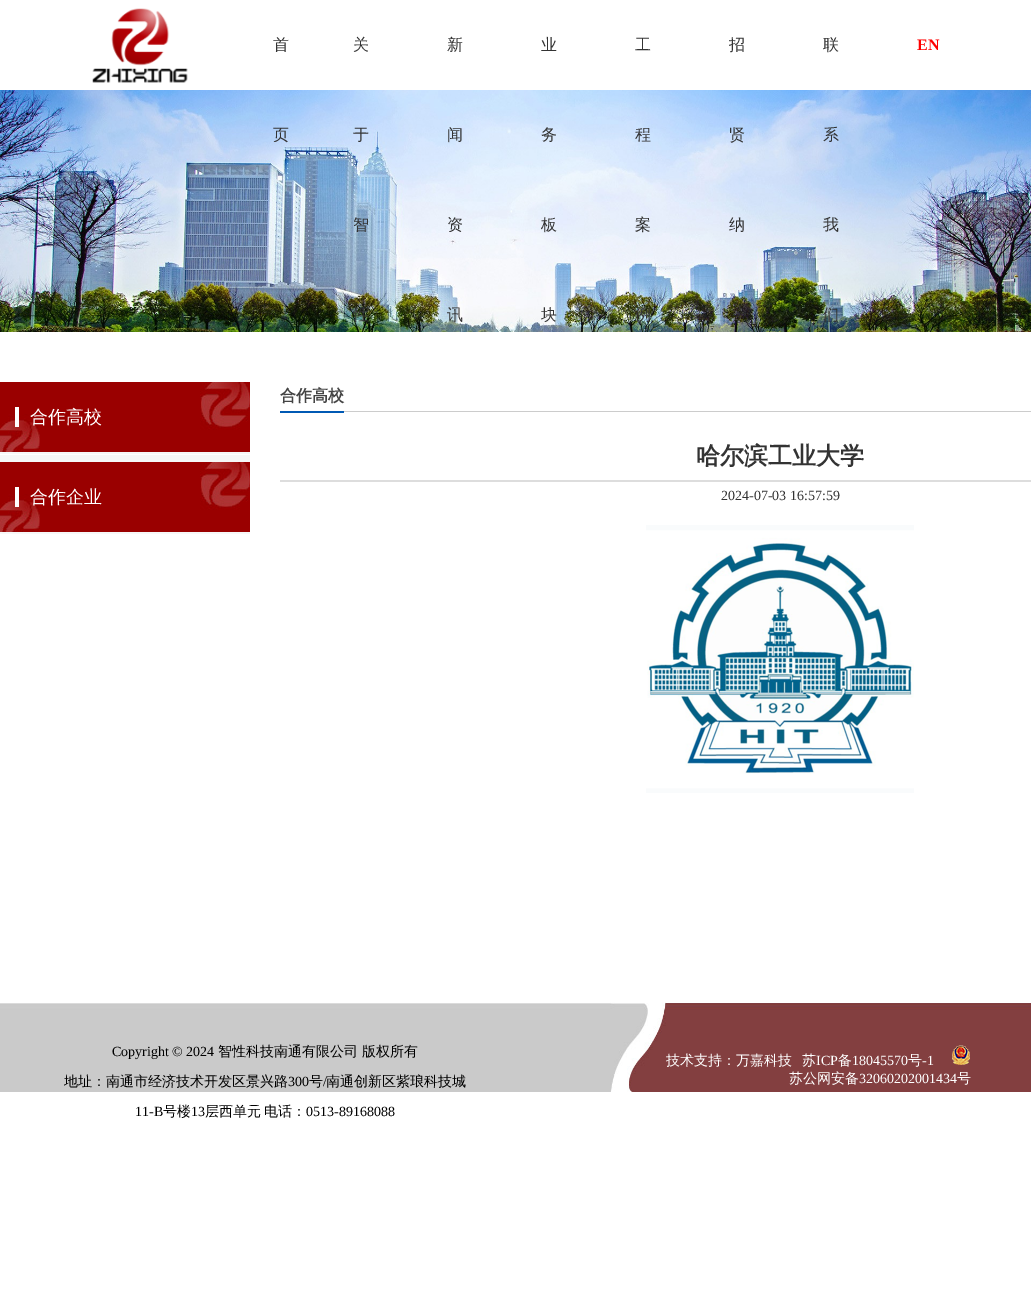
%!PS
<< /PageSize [1031 1294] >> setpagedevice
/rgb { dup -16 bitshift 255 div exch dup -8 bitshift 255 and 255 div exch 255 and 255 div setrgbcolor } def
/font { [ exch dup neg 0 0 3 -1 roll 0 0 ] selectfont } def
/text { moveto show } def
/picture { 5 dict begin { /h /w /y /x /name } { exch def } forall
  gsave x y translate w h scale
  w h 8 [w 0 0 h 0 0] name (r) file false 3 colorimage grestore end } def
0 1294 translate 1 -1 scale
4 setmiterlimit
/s1 { /WenQuanYiZenHei-Medium 16 font 16#333333 rgb } def
/s2 { /LiberationSerif-Bold 16 font 16#FF0000 rgb } def
/s3 { /WenQuanYiZenHei-Medium 18 font 16#FFFFFF rgb } def
/s4 { /WenQuanYiZenHei-Bold 16 font 16#444444 rgb } def
/s5 { /WenQuanYiZenHei-Bold 24 font 16#333333 rgb } def
/s6 { /LiberationSerif-Regular 14 font 16#333333 rgb } def
/s7 { /LiberationSerif-Regular 14 font 16#000000 rgb } def
/s8 { /WenQuanYiZenHei-Medium 14 font 16#000000 rgb } def
/s9 { /WenQuanYiZenHei-Medium 14 font 16#FFFFFF rgb } def
/s10 { /LiberationSerif-Regular 14 font 16#FFFFFF rgb } def
16#FFFFFF rgb
0 0 1031 1294 rectfill
(pic1.raw) 92 8 96 75 picture
s1
(首) 273 50 text
(pic2.raw) 0 90 1031 242 picture
(页) 273 140 text
(关) 353 50 text
(于) 353 140 text
(智) 353 230 text
(性) 353 320 text
(新) 447 50 text
(闻) 447 140 text
(资) 447 230 text
(讯) 447 320 text
(业) 541 50 text
(务) 541 140 text
(板) 541 230 text
(块) 541 320 text
(工) 635 50 text
(程) 635 140 text
(案) 635 230 text
(例) 635 320 text
(招) 729 50 text
(贤) 729 140 text
(纳) 729 230 text
(联) 823 50 text
(系) 823 140 text
(我) 823 230 text
(们) 823 320 text
s2
(EN) 917 50 text
16#F6F7F7 rgb
0 452 250 82 rectfill
(pic3.raw) 0 382 250 70 picture
16#FFFFFF rgb
0 454 250 1 rectfill
s3
(合作高校) 30 423 text
15 407 4 20 rectfill
(pic3.raw) 0 462 250 70 picture
(合作企业) 30 503 text
15 487 4 20 rectfill
16#CCCCCC rgb
344 411 687 1 rectfill
16#0059B4 rgb
280 411 64 2 rectfill
s4
(合作高校) 280 401 text
16#DDDDDD rgb
280 480 751 2 rectfill
s5
(哈尔滨工业大学) 696 464 text
s6
(2024-07-03 16:57:59) 721 500 text
(pic4.raw) 646 525 268 268 picture
(pic5.raw) 0 1002 1031 90 picture
s7
(Copyright © 2024) 112 1056 text
s8
(智性科技南通有限公司) 218 1056 text
(版权所有) 362 1056 text
(地址：南通市经济技术开发区景兴路) 64 1086 text
s7
(300) 288 1086 text
s8
(号) 309 1086 text
s7
(/) 323 1086 text
s8
(南通创新区紫琅科技城) 326 1086 text
s7
(11-B) 135 1116 text
s8
(号楼) 163 1116 text
s7
(13) 191 1116 text
s8
(层西单元) 205 1116 text
(电话：) 264 1116 text
s7
(0513-89168088) 306 1116 text
s9
(技术支持：万嘉科技) 666 1065 text
(苏) 802 1065 text
s10
(ICP) 816 1065 text
s9
(备) 838 1065 text
s10
(18045570) 852 1065 text
s9
(号) 908 1065 text
s10
(-1) 922 1065 text
(pic6.raw) 952 1045 18 20 picture
s9
(苏公网安备) 789 1083 text
s10
(32060202001434) 859 1083 text
s9
(号) 957 1083 text
showpage
